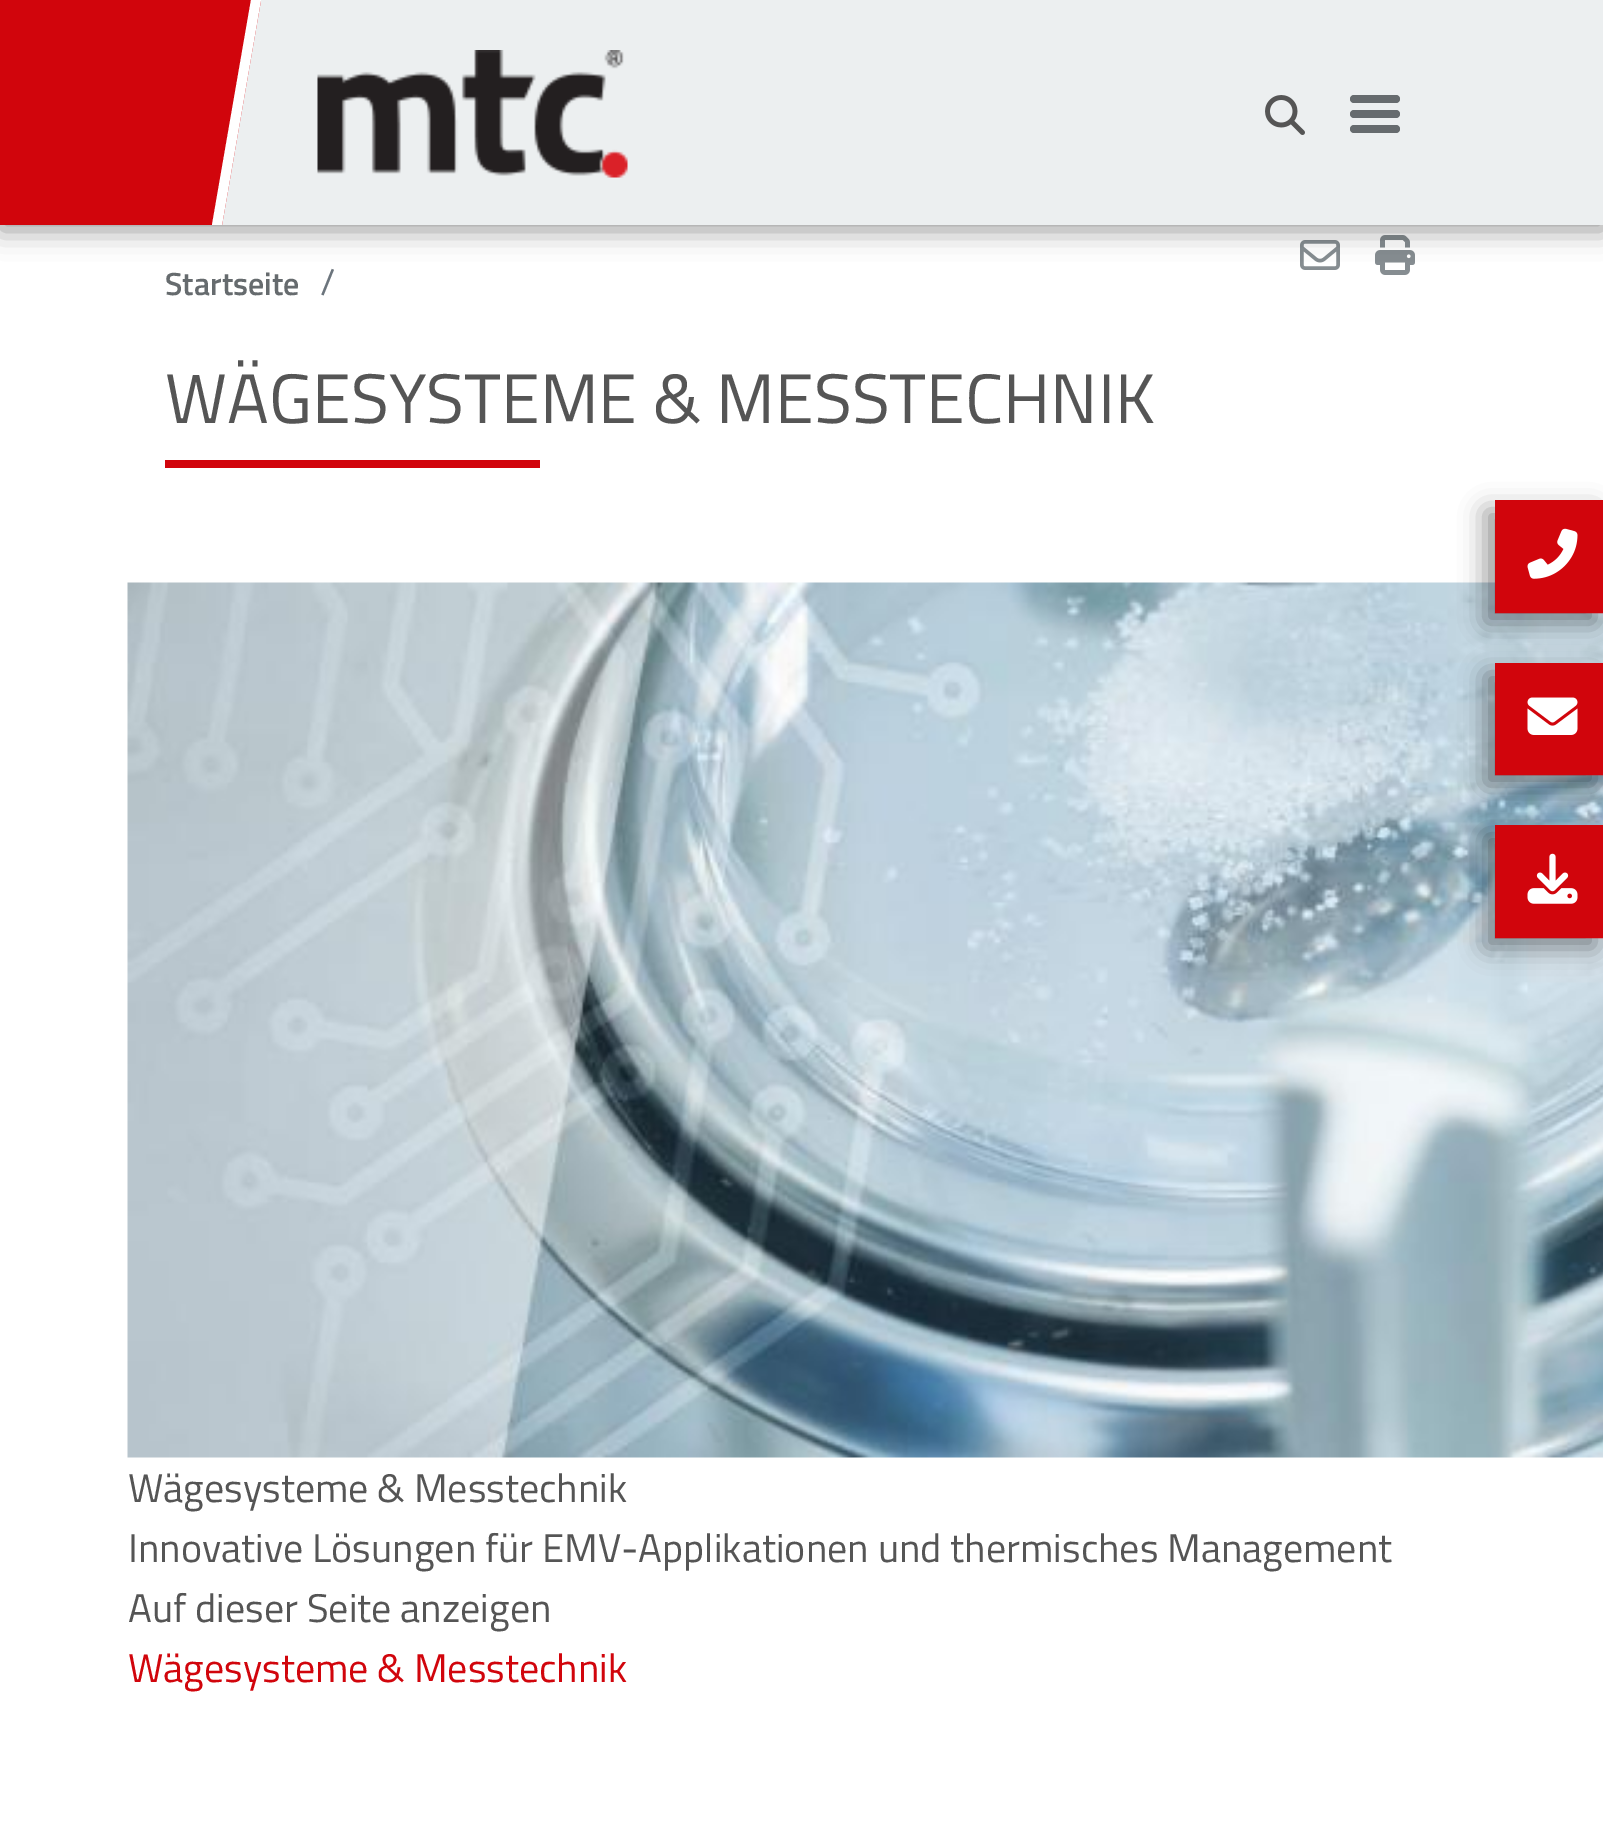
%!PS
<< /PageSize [1603 1822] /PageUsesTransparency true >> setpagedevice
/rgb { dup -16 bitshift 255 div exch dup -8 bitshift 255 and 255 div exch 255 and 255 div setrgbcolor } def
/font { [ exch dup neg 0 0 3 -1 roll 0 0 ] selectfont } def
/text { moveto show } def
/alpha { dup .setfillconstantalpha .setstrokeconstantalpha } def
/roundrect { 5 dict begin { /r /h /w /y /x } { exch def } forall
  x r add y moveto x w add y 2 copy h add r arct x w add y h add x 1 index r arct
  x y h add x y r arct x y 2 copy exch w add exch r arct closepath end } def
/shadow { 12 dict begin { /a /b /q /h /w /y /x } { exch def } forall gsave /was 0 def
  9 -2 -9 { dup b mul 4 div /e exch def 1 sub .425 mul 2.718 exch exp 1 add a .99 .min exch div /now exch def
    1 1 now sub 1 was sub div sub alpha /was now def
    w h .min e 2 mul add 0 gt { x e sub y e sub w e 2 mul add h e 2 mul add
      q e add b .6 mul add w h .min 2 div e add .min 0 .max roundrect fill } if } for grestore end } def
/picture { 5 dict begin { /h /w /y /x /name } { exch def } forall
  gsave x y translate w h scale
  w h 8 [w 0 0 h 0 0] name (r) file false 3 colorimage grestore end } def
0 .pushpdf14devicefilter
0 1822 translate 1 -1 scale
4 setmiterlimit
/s1 { /TitilliumWeb-SemiBold 32 font 16#666B6E rgb } def
/s2 { /TitilliumWeb-Regular 37 font 16#6C757D rgb } def
/s3 { /TitilliumWeb-Regular 70 font 16#555555 rgb } def
/s4 { /TitilliumWeb-Regular 40 font 16#555555 rgb } def
/s5 { /TitilliumWeb-Regular 40 font 16#D1050C rgb } def
16#FFFFFF rgb
0 0 1603 1822 rectfill
(pic3.raw) 1300 240 40 30 picture
(pic4.raw) 1375 235 40 40 picture
16#000000 rgb
0 5 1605 225 0 14 0.41 shadow
16#ECEFF0 rgb
222 0 1381 225 rectfill
16#D1050C rgb
-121 0 moveto 261 0 lineto 222 225 lineto -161 225 lineto closepath fill
16#FFFFFF rgb
251 0 moveto 261 0 lineto 222 225 lineto 212 225 lineto closepath fill
(pic1.raw) 317 50 311 128 picture
(pic2.raw) 1265 95 40 40 picture
16#666B6E rgb
1350 95 50 8 4 roundrect fill
1350 110 50 8 4 roundrect fill
1350 125 50 8 4 roundrect fill
s1
(Startseite) 165 295 text
s2
(/) 320 295 text
s3
(WÄGESYSTEME & MESSTECHNIK) 165 423 text
16#D1050C rgb
165 460 375 8 rectfill
(pic5.raw) 127 582 1476 876 picture
s4
(Wägesysteme & Messtechnik) 128 1502 text
(Innovative Lösungen für EMV-Applikationen und thermisches Management) 128 1562 text
(Auf dieser Seite anzeigen) 128 1622 text
s5
(Wägesysteme & Messtechnik) 128 1682 text
16#000000 rgb
1485 510 110 113 0 12.5 0.4 shadow
16#D1050C rgb
3 setlinewidth
1496.5 501.5 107 110 rectstroke
1498 503 104 107 rectfill
(pic6.raw) 1527 528 51 51 picture
16#000000 rgb
1485 673 110 112 0 12.5 0.4 shadow
16#D1050C rgb
1496.5 664.5 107 109 rectstroke
1498 666 104 106 rectfill
(pic7.raw) 1527 697 51 38 picture
16#000000 rgb
1485 835 110 113 0 12.5 0.4 shadow
16#D1050C rgb
1496.5 826.5 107 110 rectstroke
1498 828 104 107 rectfill
(pic8.raw) 1527 853 51 51 picture
.poppdf14devicefilter showpage
